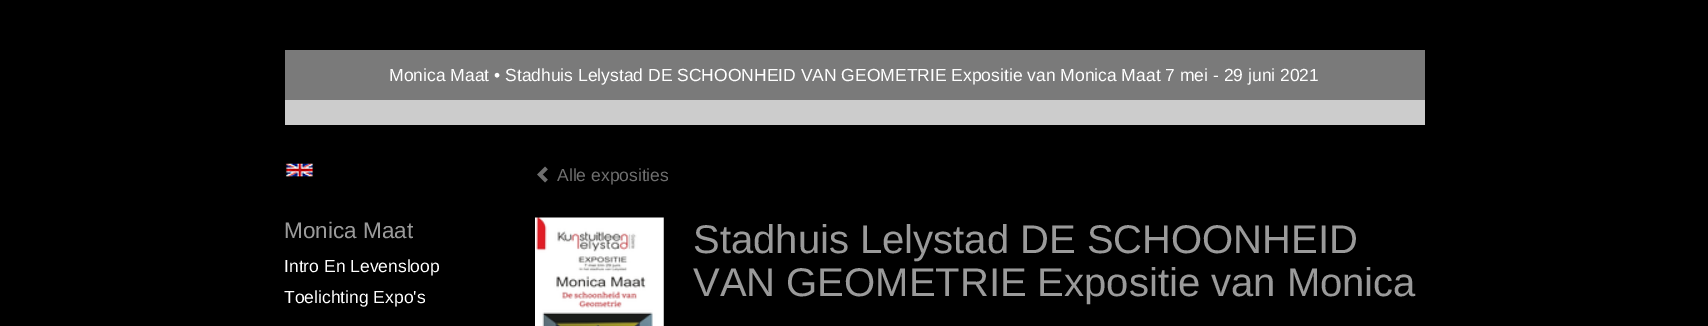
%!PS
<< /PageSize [1708 326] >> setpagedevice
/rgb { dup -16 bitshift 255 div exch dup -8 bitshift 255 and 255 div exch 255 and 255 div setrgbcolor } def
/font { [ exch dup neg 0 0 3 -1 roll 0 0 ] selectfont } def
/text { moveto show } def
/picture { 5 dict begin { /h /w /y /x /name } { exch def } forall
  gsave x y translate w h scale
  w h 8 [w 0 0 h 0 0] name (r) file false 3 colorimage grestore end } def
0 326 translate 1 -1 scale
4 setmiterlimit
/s1 { /LiberationSans-Regular 17.5 font 16#FFFFFF rgb } def
/s2 { /LiberationSans-Regular 22.5 font 16#9A9A9A rgb } def
/s3 { /LiberationSans-Regular 17.5 font 16#6F6F6F rgb } def
/s4 { /LiberationSans-Regular 40 font 16#9A9A9A rgb } def
16#000000 rgb
0 0 1708 326 rectfill
16#7A7A7A rgb
285 50 1140 50 rectfill
s1
(Monica Maat • Stadhuis Lelystad DE SCHOONHEID VAN GEOMETRIE Expositie van Monica Maat 7 mei - 29 juni 2021) 389 81 text
16#CCCCCC rgb
285 100 1140 25 rectfill
(pic1.raw) 285 163 29 14 picture
s2
(Monica Maat) 284 238 text
s1
(Intro En Levensloop) 284 272 text
(Toelichting Expo's) 284 303 text
(pic2.raw) 537 166 11 17 picture
s3
(Alle exposities) 557 181 text
(pic3.raw) 535 217 129 109 picture
s4
(Stadhuis Lelystad DE SCHOONHEID) 693 253 text
(VAN GEOMETRIE Expositie van Monica) 693 296 text
showpage
